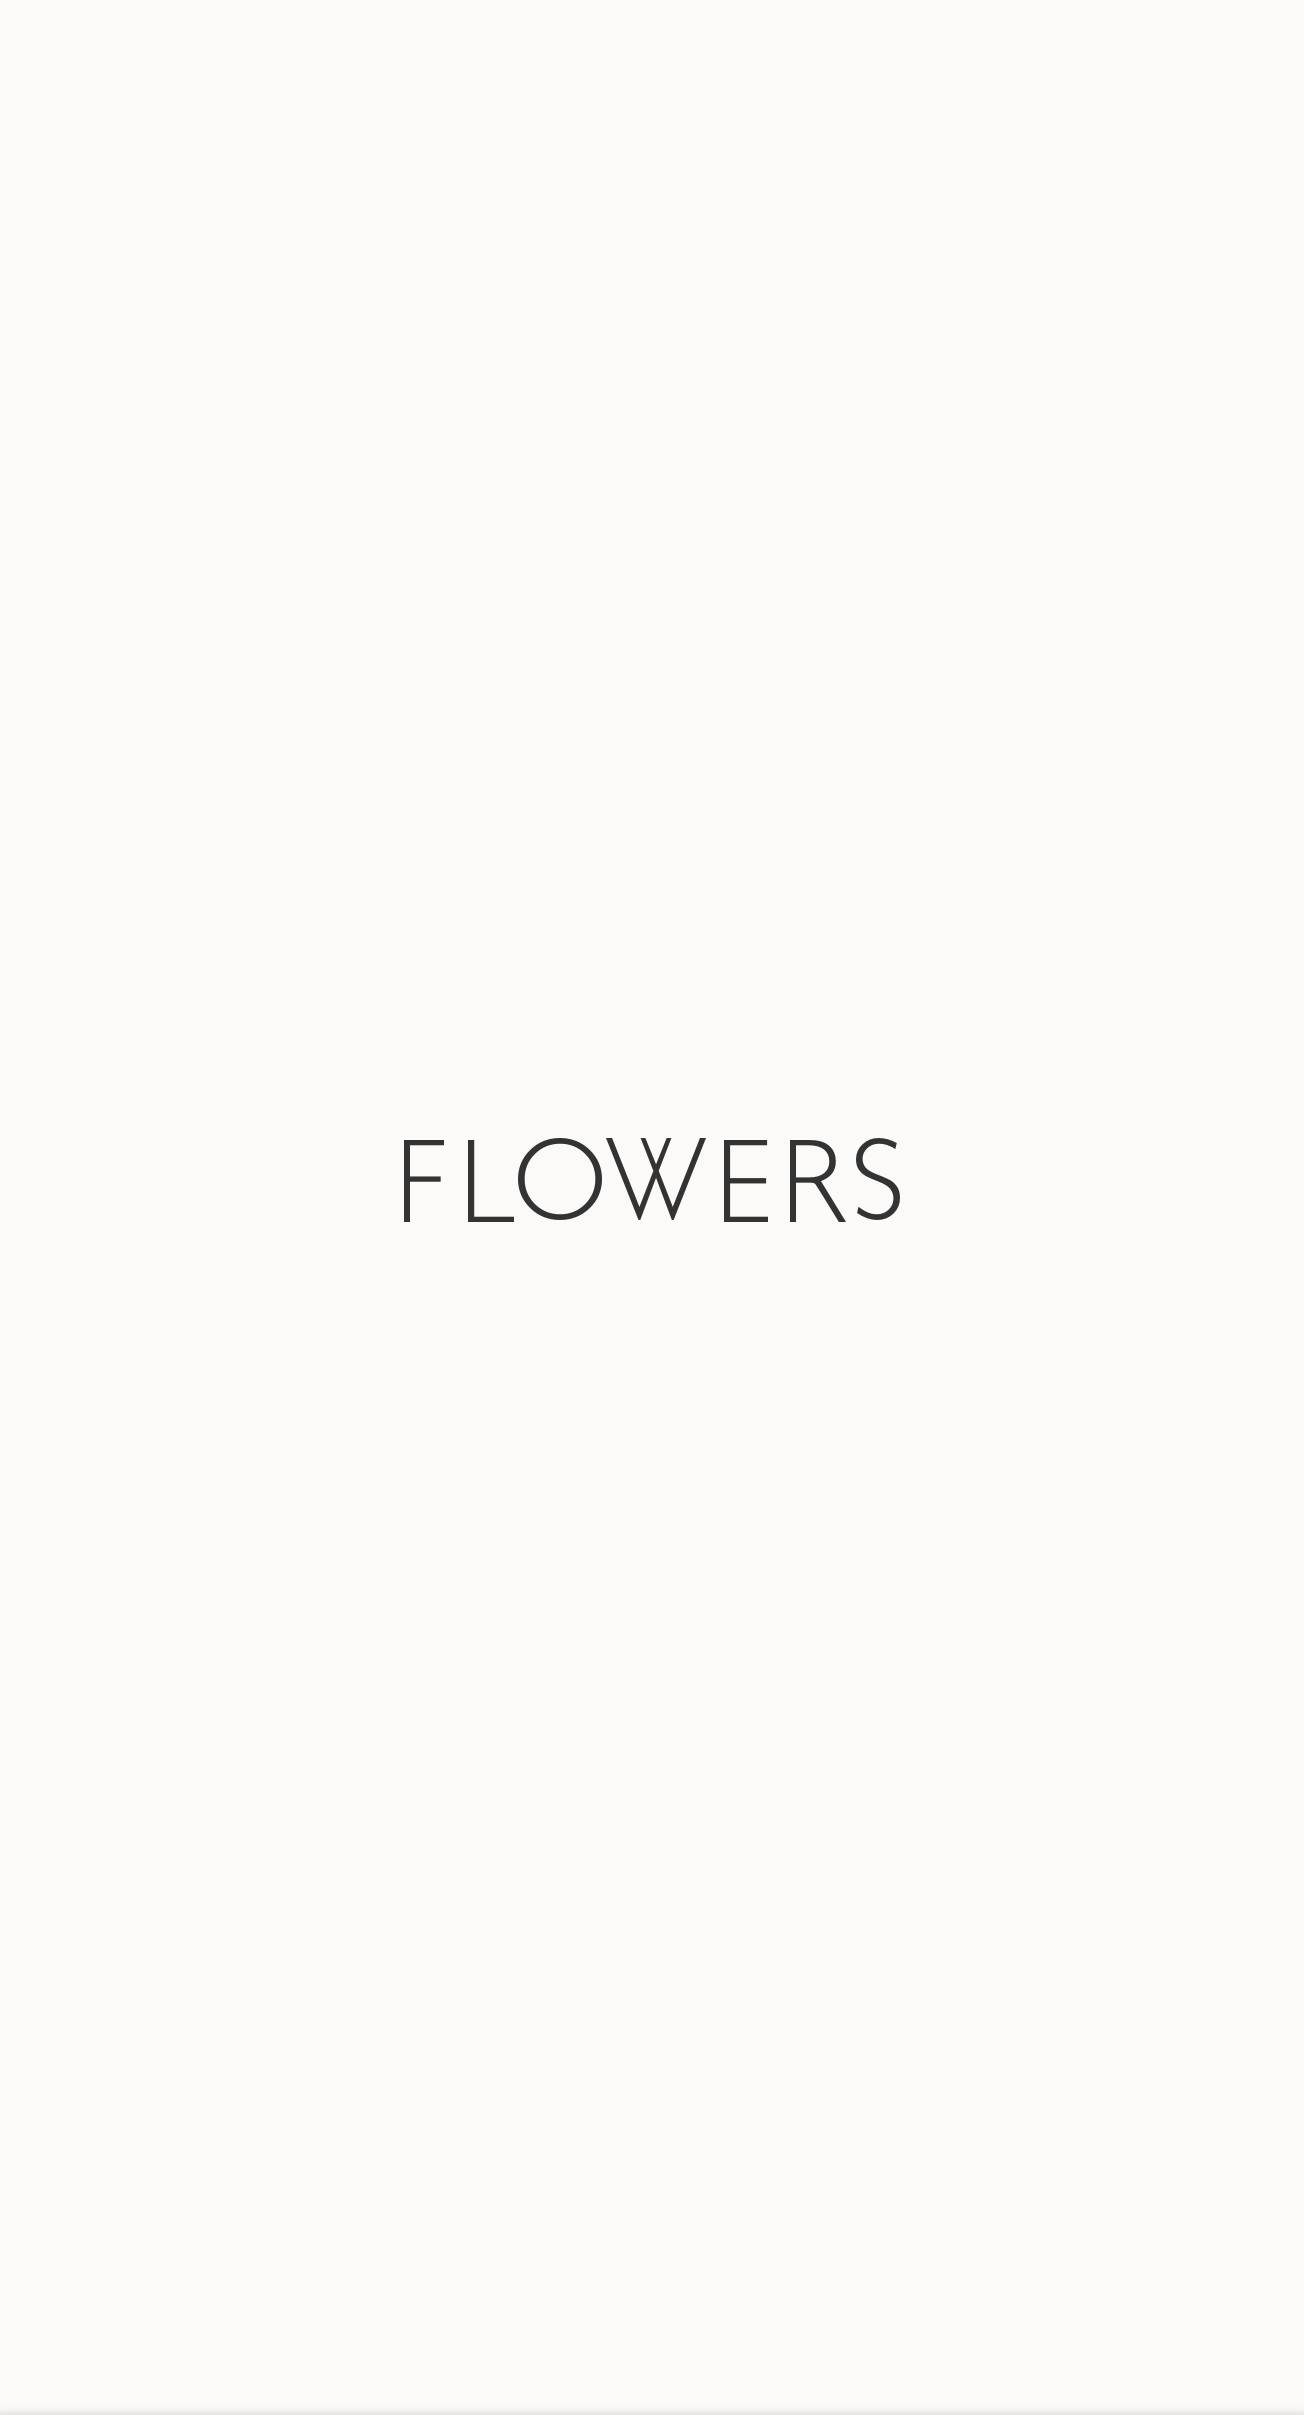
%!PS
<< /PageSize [1304 2415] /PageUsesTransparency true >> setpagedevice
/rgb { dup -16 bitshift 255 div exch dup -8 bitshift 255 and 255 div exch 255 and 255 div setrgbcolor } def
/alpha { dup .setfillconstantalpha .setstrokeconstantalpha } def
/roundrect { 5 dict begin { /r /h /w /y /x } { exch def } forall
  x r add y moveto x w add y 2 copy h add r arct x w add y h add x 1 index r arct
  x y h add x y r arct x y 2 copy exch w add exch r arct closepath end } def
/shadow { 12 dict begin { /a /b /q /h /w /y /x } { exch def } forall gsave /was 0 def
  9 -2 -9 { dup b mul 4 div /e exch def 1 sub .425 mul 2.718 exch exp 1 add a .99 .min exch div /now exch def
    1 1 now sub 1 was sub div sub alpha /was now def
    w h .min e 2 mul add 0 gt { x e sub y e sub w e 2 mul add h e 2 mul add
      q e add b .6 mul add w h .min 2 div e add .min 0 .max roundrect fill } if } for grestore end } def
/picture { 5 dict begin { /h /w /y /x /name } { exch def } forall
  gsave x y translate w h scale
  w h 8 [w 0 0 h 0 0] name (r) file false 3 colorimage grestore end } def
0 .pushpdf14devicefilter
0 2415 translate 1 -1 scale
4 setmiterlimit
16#FBFAF9 rgb
0 0 1304 2415 rectfill
(pic1.raw) 404 1138 496 84 picture
16#000000 rgb
0 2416 1304 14 0 5 0.23 shadow
.poppdf14devicefilter showpage
